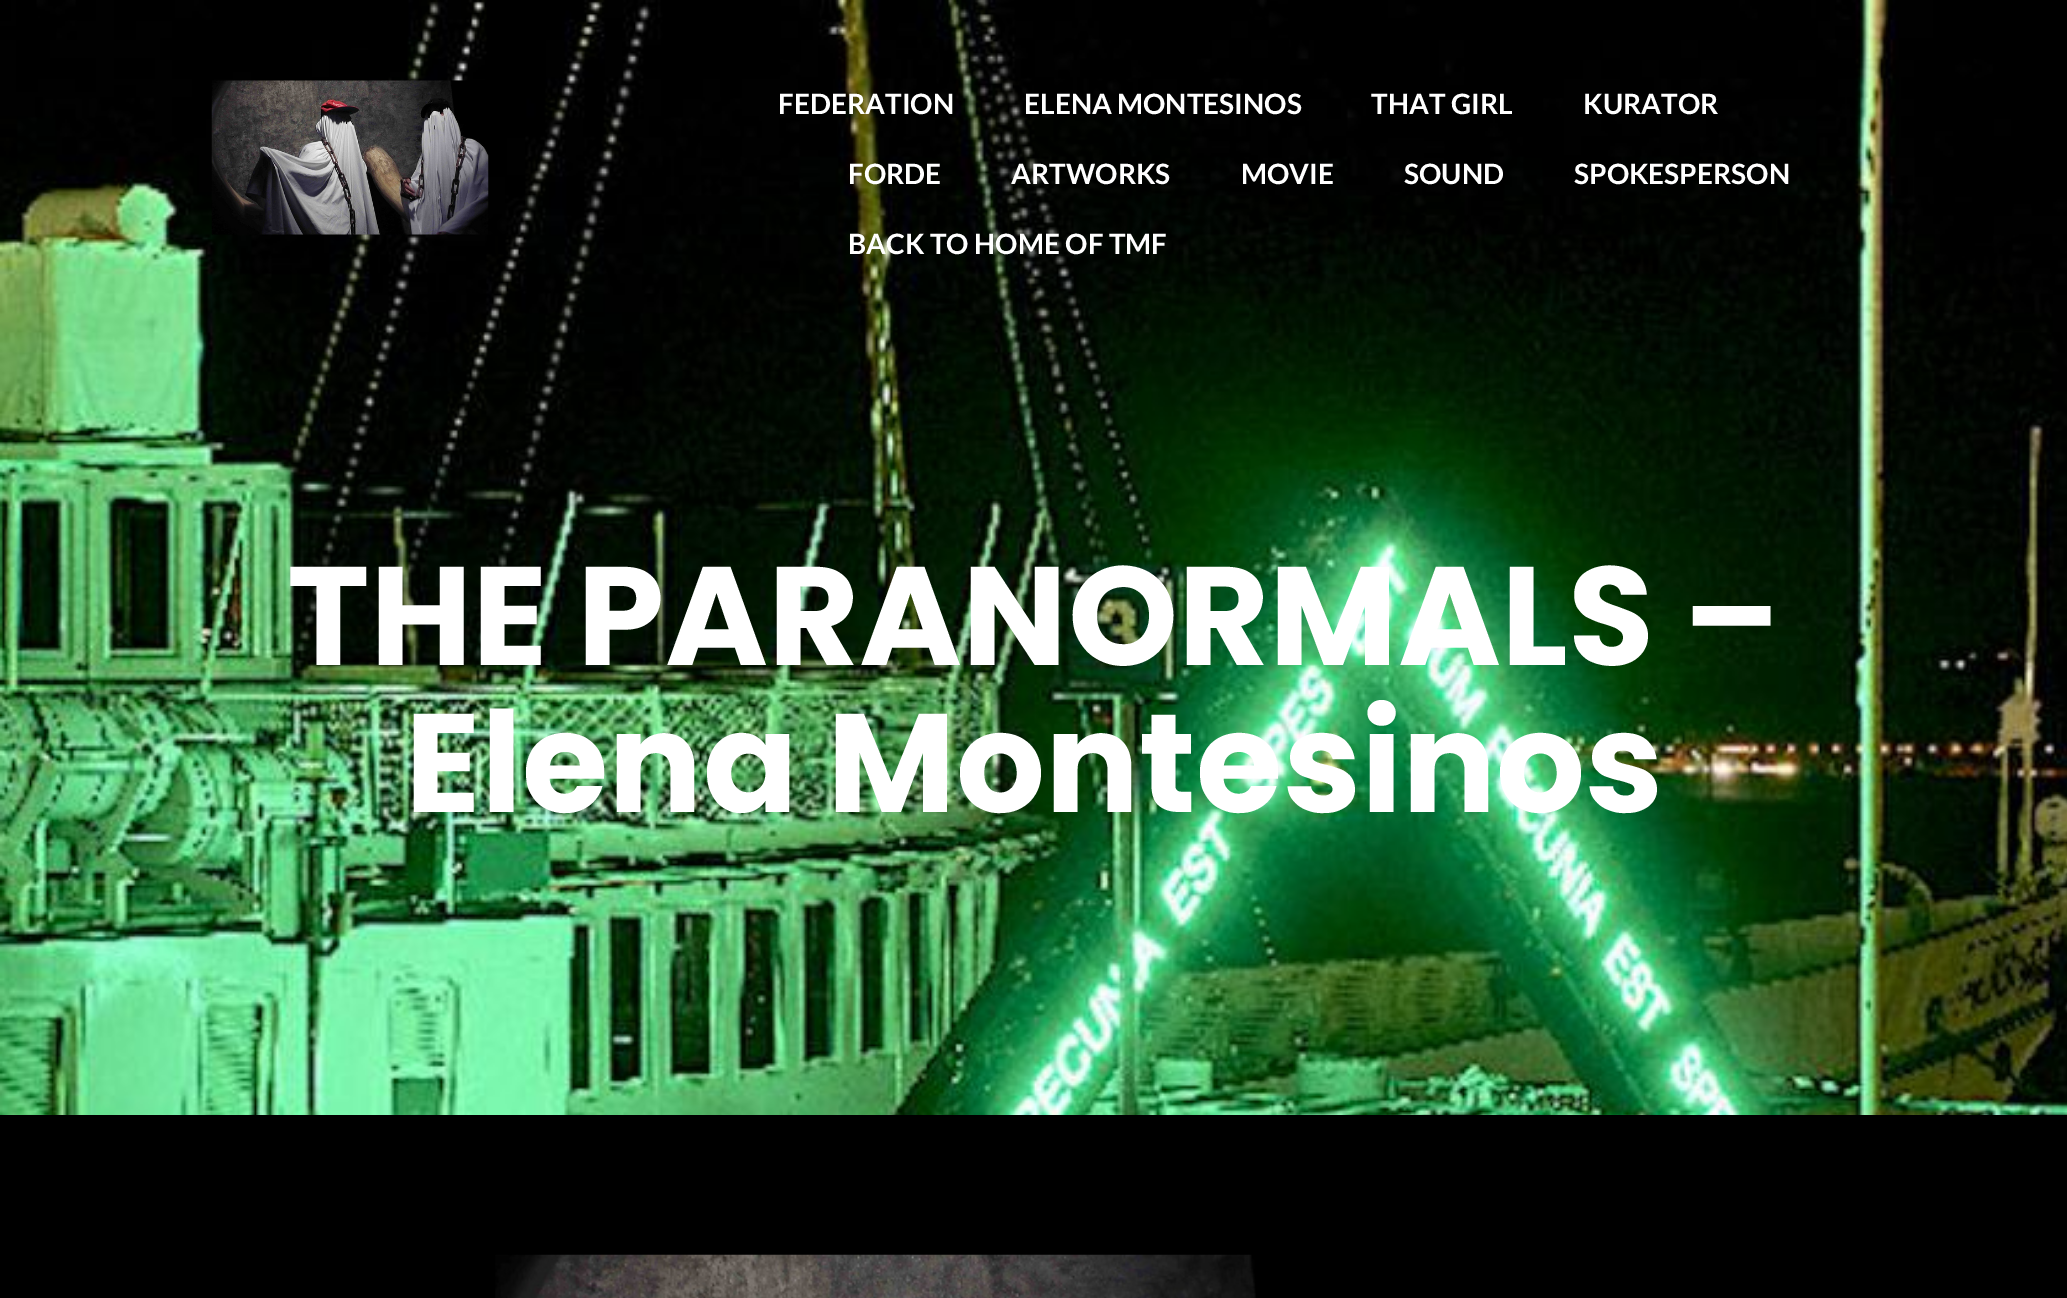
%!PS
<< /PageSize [2067 1298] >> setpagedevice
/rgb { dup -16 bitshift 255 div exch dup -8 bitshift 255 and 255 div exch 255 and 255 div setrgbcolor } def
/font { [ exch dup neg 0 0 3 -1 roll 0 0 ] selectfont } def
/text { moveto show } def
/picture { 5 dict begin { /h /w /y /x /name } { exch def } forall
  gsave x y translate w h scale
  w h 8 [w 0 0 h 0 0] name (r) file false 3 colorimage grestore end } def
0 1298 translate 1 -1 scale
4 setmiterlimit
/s1 { /Lato-Bold 28 font 16#FFFFFF rgb } def
/s2 { /Poppins-Bold 140 font 16#FFFFFF rgb } def
16#000000 rgb
0 0 2067 1298 rectfill
(pic1.raw) 0 0 2067 1115 picture
(pic2.raw) 211 80 278 155 picture
s1
(FEDERATION) 778 114 text
(ELENA MONTESINOS) 1024 114 text
(THAT GIRL) 1371 114 text
(KURATOR) 1583 114 text
(FORDE) 848 184 text
(ARTWORKS) 1011 184 text
(MOVIE) 1241 184 text
(SOUND) 1404 184 text
(SPOKESPERSON) 1574 184 text
(BACK TO HOME OF TMF) 848 254 text
s2
(THE PARANORMALS –) 287 665 text
(Elena Montesinos) 405 812 text
(pic3.raw) 495 1254 761 44 picture
showpage
